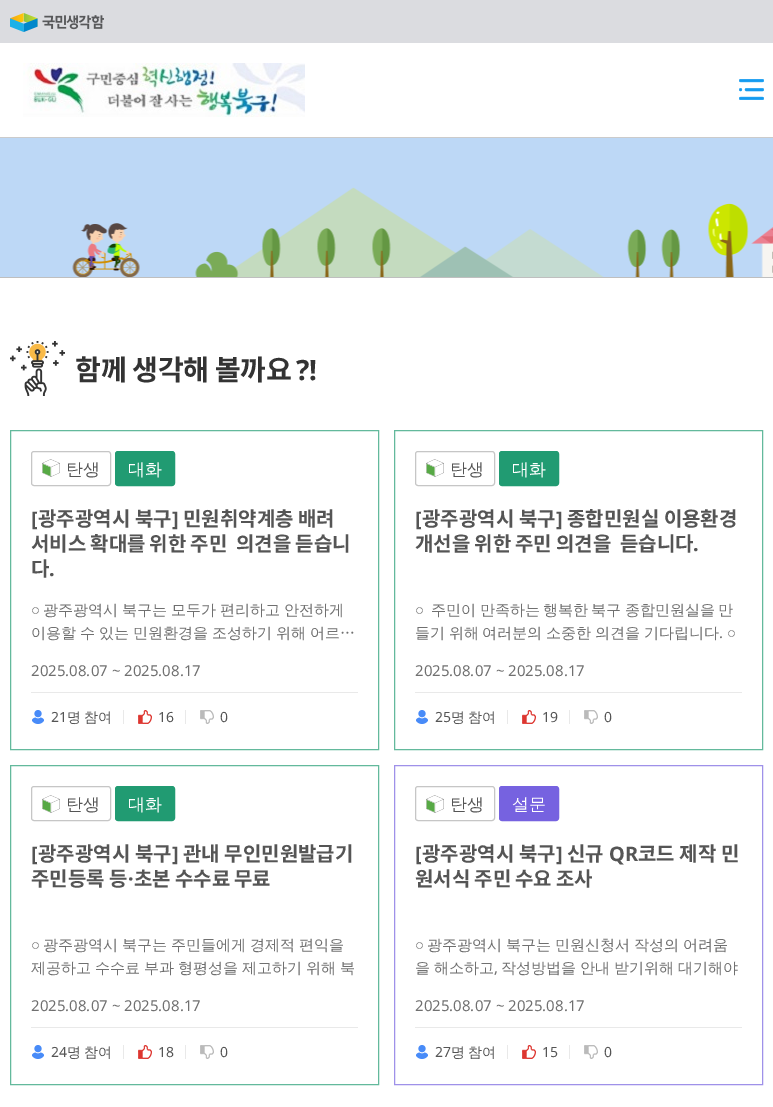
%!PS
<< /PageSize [773 1107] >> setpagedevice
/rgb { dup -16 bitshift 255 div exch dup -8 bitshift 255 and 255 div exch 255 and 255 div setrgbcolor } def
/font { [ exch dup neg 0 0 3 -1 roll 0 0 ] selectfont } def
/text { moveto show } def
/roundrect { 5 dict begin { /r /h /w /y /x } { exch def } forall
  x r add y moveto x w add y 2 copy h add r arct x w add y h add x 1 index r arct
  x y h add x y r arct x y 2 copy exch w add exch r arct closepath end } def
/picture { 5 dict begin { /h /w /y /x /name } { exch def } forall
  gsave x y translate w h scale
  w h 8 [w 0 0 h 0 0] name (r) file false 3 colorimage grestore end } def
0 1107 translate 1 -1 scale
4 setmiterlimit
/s1 { /NotoSans-Bold 28 font 16#333333 rgb } def
/s2 { /WenQuanYiZenHei-Medium 17 font 16#555555 rgb } def
/s3 { /WenQuanYiZenHei-Medium 17 font 16#FFFFFF rgb } def
/s4 { /NotoSans-Bold 20 font 16#555555 rgb } def
/s5 { /NotoSansKR-Bold 20 font 16#555555 rgb } def
/s6 { /LiberationSans-Regular 15 font 16#707070 rgb } def
/s7 { /NotoSans-Regular 15 font 16#707070 rgb } def
/s8 { /NotoSans-Regular 14 font 16#555555 rgb } def
/s9 { /WenQuanYiZenHei-Medium 15 font 16#707070 rgb } def
16#FFFFFF rgb
0 0 773 1107 rectfill
16#DBDCE0 rgb
0 0 773 43 rectfill
(pic1.raw) 10 13 94 19 picture
16#CBCBCB rgb
0 137 773 1 rectfill
(pic2.raw) 23 63 282 54 picture
(pic3.raw) 739 79 25 21 picture
16#BDD8F6 rgb
0 138 773 49 rectfill
(pic4.raw) 0 187 773 91 picture
(pic5.raw) 10 341 55 55 picture
/NotoSansKR-Bold 28 font
16#333333 rgb
75 380 moveto -1 0 32 (함께 생각해 볼까요) widthshow
s1
(?!) 296 380 text
16#63B99C rgb
10.5 430.5 368 319 rectstroke
(pic6.raw) 42 459 18 18 picture
16#C6C6C6 rgb
31.5 451.5 79 34 2.5 roundrect stroke
s2
(탄생) 66 475 text
16#219B72 rgb
115.5 451.5 59 34 2.5 roundrect gsave fill grestore
stroke
s3
(대화) 128 475 text
s4
([) 31 526 text
s5
(광주광역시 북구) 38 526 text
s4
(]) 172 526 text
s5
(민원취약계층 배려) 183 526 text
31 551 moveto -0.5 0 32 (서비스 확대를 위한 주민) widthshow
236 551 moveto -0.5 0 32 (의견을 듣습니) widthshow
(다) 31 576 text
s4
(.) 49 576 text
s6
(○) 31 615 text
/WenQuanYiZenHei-Medium 15 font
43 615 moveto -0.5 0 32 (광주광역시 북구는 모두가 편리하고 안전하게) widthshow
31 638 moveto -0.5 0 32 (이용할 수 있는 민원환경을 조성하기 위해 어르…) widthshow
s7
(2025.08.07 ~ 2025.08.17) 31 676 text
16#E9E9E9 rgb
31 692 327 1 rectfill
(pic7.raw) 32 710 12 14 picture
s8
(21) 51 722 text
/WenQuanYiZenHei-Medium 14 font
67 722 moveto -1 0 32 (명 참여) widthshow
(pic8.raw) 138 710 14 14 picture
16#E9E9E9 rgb
123 710 1 14 rectfill
s8
(16) 158 722 text
(pic9.raw) 200 710 14 14 picture
16#E9E9E9 rgb
185 710 1 14 rectfill
s8
(0) 220 722 text
16#63B99C rgb
394.5 430.5 368 319 rectstroke
(pic6.raw) 426 459 18 18 picture
16#C6C6C6 rgb
415.5 451.5 79 34 2.5 roundrect stroke
s2
(탄생) 450 475 text
16#219B72 rgb
499.5 451.5 59 34 2.5 roundrect gsave fill grestore
stroke
s3
(대화) 512 475 text
s4
([) 415 526 text
s5
(광주광역시 북구) 422 526 text
s4
(]) 556 526 text
s5
(종합민원실 이용환경) 567 526 text
415 551 moveto -0.5 0 32 (개선을 위한 주민 의견을) widthshow
620 551 moveto -0.5 0 32 (듣습니다) widthshow
s4
(.) 693 551 text
s6
(○) 415 615 text
/WenQuanYiZenHei-Medium 15 font
431 615 moveto -0.5 0 32 (주민이 만족하는) widthshow
(행복한) 543 615 text
591 615 moveto -0.5 0 32 (북구 종합민원실을) widthshow
(만) 718 615 text
415 638 moveto -0.5 0 32 (들기 위해) widthshow
482 638 moveto -0.5 0 32 (여러분의 소중한 의견을 기다립니다) widthshow
s6
(○) 727 638 text
s7
(.) 719 638 text
(2025.08.07 ~ 2025.08.17) 415 676 text
16#E9E9E9 rgb
415 692 327 1 rectfill
(pic7.raw) 416 710 12 14 picture
s8
(25) 435 722 text
/WenQuanYiZenHei-Medium 14 font
451 722 moveto -1 0 32 (명 참여) widthshow
(pic8.raw) 522 710 14 14 picture
16#E9E9E9 rgb
507 710 1 14 rectfill
s8
(19) 542 722 text
(pic9.raw) 584 710 14 14 picture
16#E9E9E9 rgb
569 710 1 14 rectfill
s8
(0) 604 722 text
16#63B99C rgb
10.5 765.5 368 319 rectstroke
(pic6.raw) 42 795 18 18 picture
16#C6C6C6 rgb
31.5 786.5 79 34 2.5 roundrect stroke
s2
(탄생) 66 810 text
16#219B72 rgb
115.5 786.5 59 34 2.5 roundrect gsave fill grestore
stroke
s3
(대화) 128 810 text
s4
([) 31 861 text
s5
(광주광역시 북구) 38 861 text
s4
(]) 172 861 text
s5
(관내 무인민원발급기) 183 861 text
31 886 moveto -0.5 0 32 (주민등록 등) widthshow
s4
(·) 128 886 text
/NotoSansKR-Bold 20 font
134 886 moveto -0.5 0 32 (초본 수수료 무료) widthshow
s6
(○) 31 950 text
/WenQuanYiZenHei-Medium 15 font
43 950 moveto -0.5 0 32 (광주광역시 북구는 주민들에게 경제적 편익을) widthshow
31 973 moveto -0.5 0 32 (제공하고 수수료 부과 형평성을 제고하기 위해 북) widthshow
s7
(2025.08.07 ~ 2025.08.17) 31 1011 text
16#E9E9E9 rgb
31 1027 327 1 rectfill
(pic7.raw) 32 1045 12 14 picture
s8
(24) 51 1057 text
/WenQuanYiZenHei-Medium 14 font
67 1057 moveto -1 0 32 (명 참여) widthshow
(pic8.raw) 138 1045 14 14 picture
16#E9E9E9 rgb
123 1045 1 14 rectfill
s8
(18) 158 1057 text
(pic9.raw) 200 1045 14 14 picture
16#E9E9E9 rgb
185 1045 1 14 rectfill
s8
(0) 220 1057 text
16#9F91E9 rgb
394.5 765.5 368 319 rectstroke
(pic6.raw) 426 795 18 18 picture
16#C6C6C6 rgb
415.5 786.5 79 34 2.5 roundrect stroke
s2
(탄생) 450 810 text
16#7662E0 rgb
499.5 786.5 59 34 2.5 roundrect gsave fill grestore
stroke
s3
(설문) 512 810 text
s4
([) 415 861 text
s5
(광주광역시 북구) 422 861 text
s4
(]) 556 861 text
s5
(신규) 567 861 text
s4
(QR) 609 861 text
s5
(코드 제작 민) 638 861 text
415 886 moveto -0.5 0 32 (원서식 주민 수요 조사) widthshow
s6
(○) 415 950 text
/WenQuanYiZenHei-Medium 15 font
427 950 moveto -0.5 0 32 (광주광역시 북구는 민원신청서 작성의 어려움) widthshow
415 973 moveto -0.5 0 32 (을 해소하고) widthshow
s7
(,) 494 973 text
/WenQuanYiZenHei-Medium 15 font
501 973 moveto -0.5 0 32 (작성방법을 안내 받기위해 대기해야) widthshow
s7
(2025.08.07 ~ 2025.08.17) 415 1011 text
16#E9E9E9 rgb
415 1027 327 1 rectfill
(pic7.raw) 416 1045 12 14 picture
s8
(27) 435 1057 text
/WenQuanYiZenHei-Medium 14 font
451 1057 moveto -1 0 32 (명 참여) widthshow
(pic8.raw) 522 1045 14 14 picture
16#E9E9E9 rgb
507 1045 1 14 rectfill
s8
(15) 542 1057 text
(pic9.raw) 584 1045 14 14 picture
16#E9E9E9 rgb
569 1045 1 14 rectfill
s8
(0) 604 1057 text
showpage
